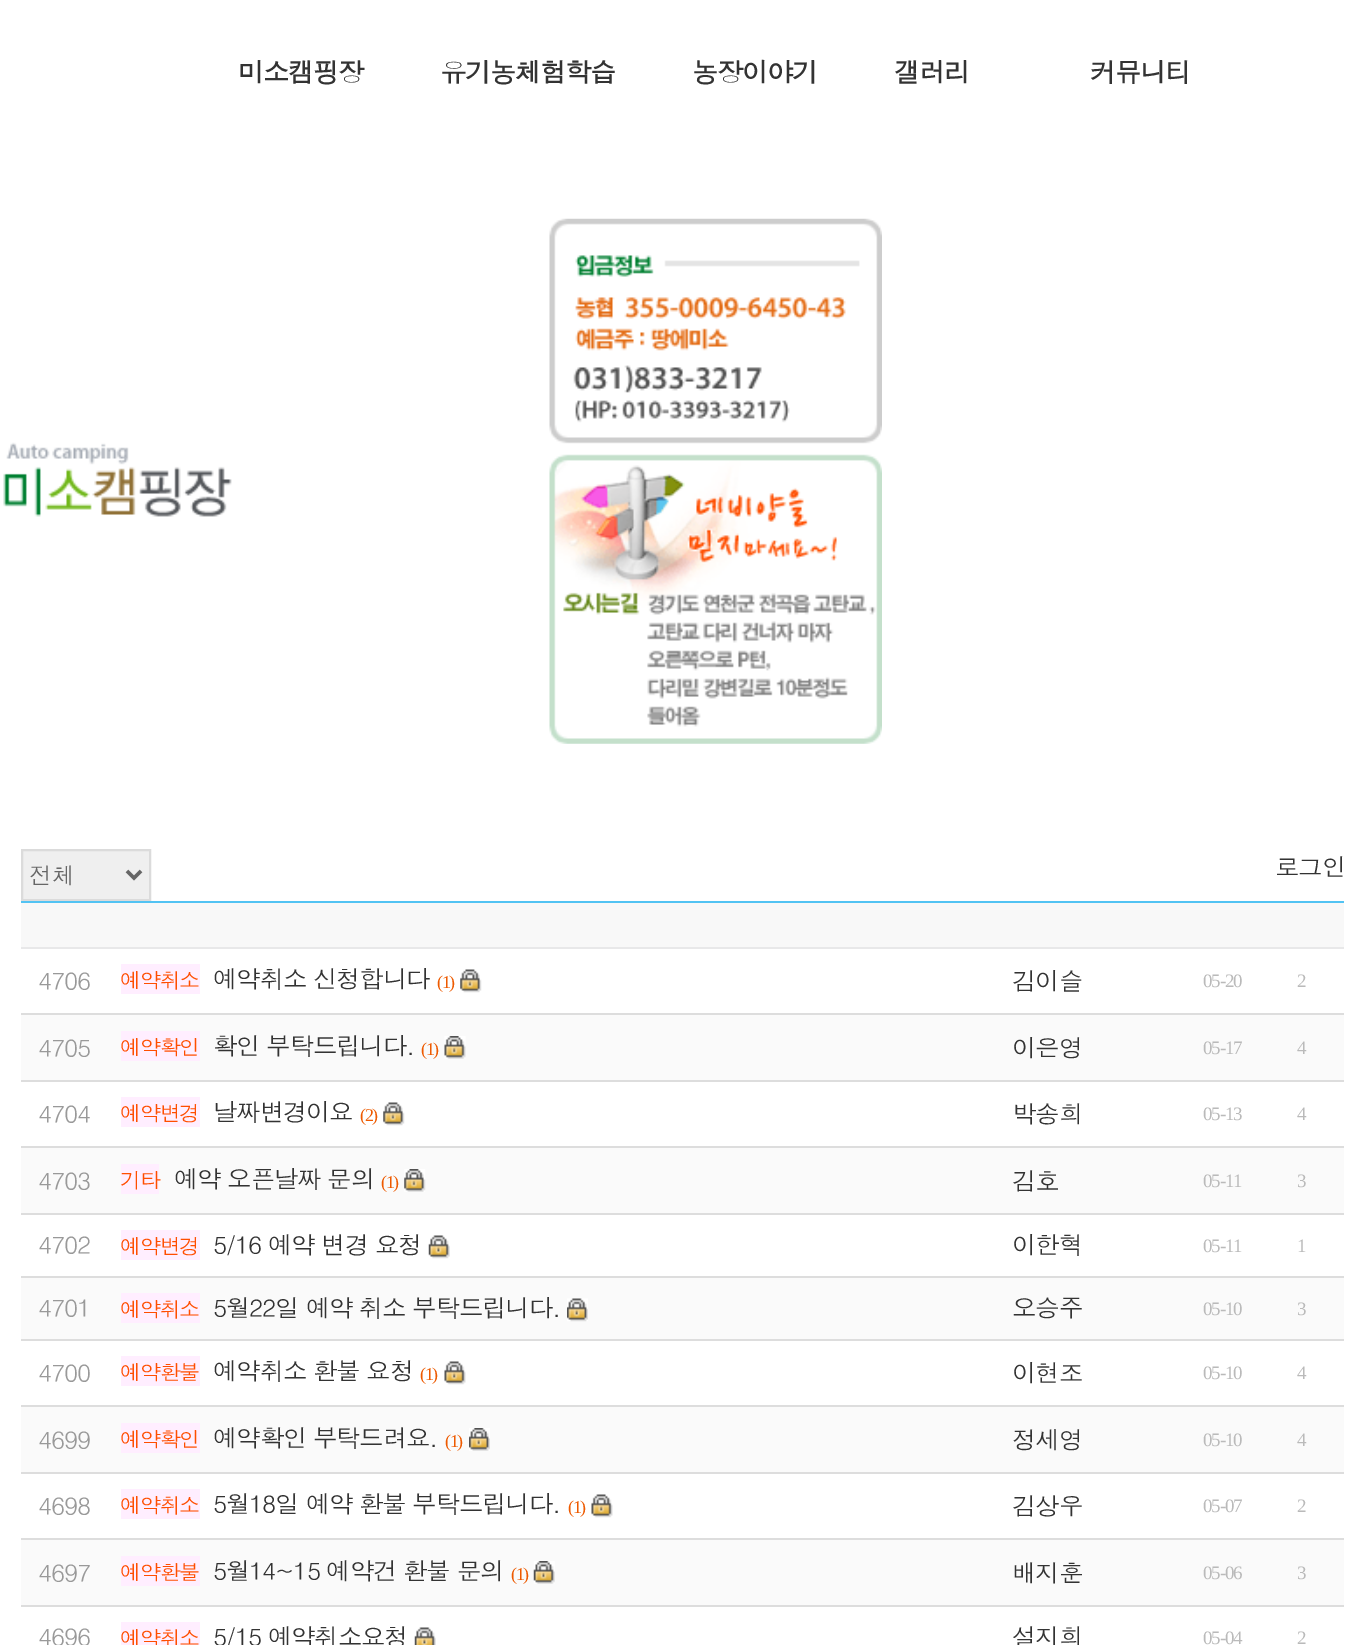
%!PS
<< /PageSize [1365 1645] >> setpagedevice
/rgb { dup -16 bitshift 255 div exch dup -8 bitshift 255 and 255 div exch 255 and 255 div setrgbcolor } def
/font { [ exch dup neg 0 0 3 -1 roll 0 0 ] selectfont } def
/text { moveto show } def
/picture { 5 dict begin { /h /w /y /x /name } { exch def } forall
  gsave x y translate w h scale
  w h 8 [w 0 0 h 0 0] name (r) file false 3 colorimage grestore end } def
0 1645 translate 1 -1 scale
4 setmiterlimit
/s1 { /Dotum-Regular 23 font 16#666666 rgb } def
16#FFFFFF rgb
0 0 1365 1645 rectfill
/Dotum-Bold 26.25 font
16#333333 rgb
238 82 moveto -1.25 0 (미소캠핑장) ashow
440 82 moveto -1.25 0 (유기농체험학습) ashow
692 82 moveto -1.25 0 (농장이야기) ashow
894 82 moveto -1.25 0 (갤러리) ashow
1090 82 moveto -1.25 0 (커뮤니티) ashow
(pic1.raw) 3 442 229 75 picture
(pic2.raw) 549 218 333 526 picture
16#EFEFEF rgb
22 850 moveto 150 850 lineto 150 900 lineto 22 900 lineto closepath gsave fill grestore
16#DBDBDB rgb
2 setlinewidth
stroke
16#666666 rgb
3.5 setlinewidth
127 871 moveto 134 878 lineto 141 871 lineto stroke
s1
(전체) 29 884 text
/Dotum-Regular 24.5 font
16#333333 rgb
1275 876 moveto -1.25 0 (로그인) ashow
16#F8F8F8 rgb
21 903 1323 44 rectfill
16#52C3F3 rgb
21 901 1323 2 rectfill
16#E8E8E9 rgb
21 947 1323 2 rectfill
16#DDDDDD rgb
21 1013 88 2 rectfill
16#999999 rgb
38 990 moveto -1.25 0 (4706) ashow
16#FFEEFF rgb
121 964 79 30 rectfill
/Dotum-Regular 21 font
16#FF4E00 rgb
120 988 moveto -1.25 0 (예약취소) ashow
/Dotum-Regular 24.5 font
16#333333 rgb
213 988 moveto -1.25 0 (예약취소 신청합니다) ashow
/LiberationSerif-Regular 18 font
16#EE5A00 rgb
437 988 moveto -1.25 0 (\(1\)) ashow
(pic3.raw) 460 969 22 24 picture
16#DDDDDD rgb
109 1013 1235 2 rectfill
/Dotum-Regular 24.5 font
16#333333 rgb
1012 990 moveto -1.25 0 (김이슬) ashow
/LiberationSerif-Regular 19 font
16#BABABA rgb
1203 987 moveto -1.25 0 (05-20) ashow
1297 987 moveto -1.25 0 (2) ashow
16#FAFAFA rgb
21 1015 1323 65 rectfill
16#DDDDDD rgb
21 1080 88 2 rectfill
/Dotum-Regular 24.5 font
16#999999 rgb
38 1057 moveto -1.25 0 (4705) ashow
16#FFEEFF rgb
121 1031 79 30 rectfill
/Dotum-Regular 21 font
16#FF4E00 rgb
120 1055 moveto -1.25 0 (예약확인) ashow
/Dotum-Regular 24.5 font
16#333333 rgb
213 1055 moveto -1.25 0 (확인 부탁드립니다.) ashow
/LiberationSerif-Regular 18 font
16#EE5A00 rgb
421 1055 moveto -1.25 0 (\(1\)) ashow
(pic4.raw) 444 1036 22 23 picture
16#DDDDDD rgb
109 1080 1235 2 rectfill
/Dotum-Regular 24.5 font
16#333333 rgb
1012 1057 moveto -1.25 0 (이은영) ashow
/LiberationSerif-Regular 19 font
16#BABABA rgb
1203 1054 moveto -1.25 0 (05-17) ashow
1297 1054 moveto -1.25 0 (4) ashow
16#DDDDDD rgb
21 1146 88 2 rectfill
/Dotum-Regular 24.5 font
16#999999 rgb
38 1123 moveto -1.25 0 (4704) ashow
16#FFEEFF rgb
121 1097 79 30 rectfill
/Dotum-Regular 21 font
16#FF4E00 rgb
120 1121 moveto -1.25 0 (예약변경) ashow
/Dotum-Regular 24.5 font
16#333333 rgb
213 1121 moveto -1.25 0 (날짜변경이요) ashow
/LiberationSerif-Regular 18 font
16#EE5A00 rgb
360 1121 moveto -1.25 0 (\(2\)) ashow
(pic3.raw) 383 1102 22 24 picture
16#DDDDDD rgb
109 1146 1235 2 rectfill
/Dotum-Regular 24.5 font
16#333333 rgb
1012 1123 moveto -1.25 0 (박송희) ashow
/LiberationSerif-Regular 19 font
16#BABABA rgb
1203 1120 moveto -1.25 0 (05-13) ashow
1297 1120 moveto -1.25 0 (4) ashow
16#FAFAFA rgb
21 1148 1323 65 rectfill
16#DDDDDD rgb
21 1213 88 2 rectfill
/Dotum-Regular 24.5 font
16#999999 rgb
38 1190 moveto -1.25 0 (4703) ashow
16#FFEEFF rgb
121 1164 38 30 rectfill
/Dotum-Regular 21 font
16#FF4E00 rgb
120 1188 moveto -1.25 0 (기타) ashow
/Dotum-Regular 24.5 font
16#333333 rgb
174 1188 moveto -1.25 0 (예약 오픈날짜 문의) ashow
/LiberationSerif-Regular 18 font
16#EE5A00 rgb
381 1188 moveto -1.25 0 (\(1\)) ashow
(pic5.raw) 404 1169 22 23 picture
16#DDDDDD rgb
109 1213 1235 2 rectfill
/Dotum-Regular 24.5 font
16#333333 rgb
1012 1190 moveto -1.25 0 (김호) ashow
/LiberationSerif-Regular 19 font
16#BABABA rgb
1203 1187 moveto -1.25 0 (05-11) ashow
1297 1187 moveto -1.25 0 (3) ashow
16#DDDDDD rgb
21 1276 88 2 rectfill
/Dotum-Regular 24.5 font
16#999999 rgb
38 1254 moveto -1.25 0 (4702) ashow
16#FFEEFF rgb
121 1230 79 30 rectfill
/Dotum-Regular 21 font
16#FF4E00 rgb
120 1254 moveto -1.25 0 (예약변경) ashow
/Dotum-Regular 24.5 font
16#333333 rgb
213 1254 moveto -1.25 0 (5/16 예약 변경 요청) ashow
(pic6.raw) 428 1235 22 24 picture
16#DDDDDD rgb
109 1276 1235 2 rectfill
16#333333 rgb
1012 1254 moveto -1.25 0 (이한혁) ashow
/LiberationSerif-Regular 19 font
16#BABABA rgb
1203 1252 moveto -1.25 0 (05-11) ashow
1297 1252 moveto -1.25 0 (1) ashow
16#FAFAFA rgb
21 1278 1323 61 rectfill
16#DDDDDD rgb
21 1339 88 2 rectfill
/Dotum-Regular 24.5 font
16#999999 rgb
38 1317 moveto -1.25 0 (4701) ashow
16#FFEEFF rgb
121 1293 79 30 rectfill
/Dotum-Regular 21 font
16#FF4E00 rgb
120 1317 moveto -1.25 0 (예약취소) ashow
/Dotum-Regular 24.5 font
16#333333 rgb
213 1317 moveto -1.25 0 (5월22일 예약 취소 부탁드립니다.) ashow
(pic7.raw) 567 1298 21 24 picture
16#DDDDDD rgb
109 1339 1235 2 rectfill
16#333333 rgb
1012 1317 moveto -1.25 0 (오승주) ashow
/LiberationSerif-Regular 19 font
16#BABABA rgb
1203 1315 moveto -1.25 0 (05-10) ashow
1297 1315 moveto -1.25 0 (3) ashow
16#DDDDDD rgb
21 1405 88 2 rectfill
/Dotum-Regular 24.5 font
16#999999 rgb
38 1382 moveto -1.25 0 (4700) ashow
16#FFEEFF rgb
121 1356 79 30 rectfill
/Dotum-Regular 21 font
16#FF4E00 rgb
120 1380 moveto -1.25 0 (예약환불) ashow
/Dotum-Regular 24.5 font
16#333333 rgb
213 1380 moveto -1.25 0 (예약취소 환불 요청) ashow
/LiberationSerif-Regular 18 font
16#EE5A00 rgb
420 1380 moveto -1.25 0 (\(1\)) ashow
(pic8.raw) 444 1361 22 24 picture
16#DDDDDD rgb
109 1405 1235 2 rectfill
/Dotum-Regular 24.5 font
16#333333 rgb
1012 1382 moveto -1.25 0 (이현조) ashow
/LiberationSerif-Regular 19 font
16#BABABA rgb
1203 1379 moveto -1.25 0 (05-10) ashow
1297 1379 moveto -1.25 0 (4) ashow
16#FAFAFA rgb
21 1407 1323 65 rectfill
16#DDDDDD rgb
21 1472 88 2 rectfill
/Dotum-Regular 24.5 font
16#999999 rgb
38 1449 moveto -1.25 0 (4699) ashow
16#FFEEFF rgb
121 1423 79 30 rectfill
/Dotum-Regular 21 font
16#FF4E00 rgb
120 1447 moveto -1.25 0 (예약확인) ashow
/Dotum-Regular 24.5 font
16#333333 rgb
213 1447 moveto -1.25 0 (예약확인 부탁드려요.) ashow
/LiberationSerif-Regular 18 font
16#EE5A00 rgb
445 1447 moveto -1.25 0 (\(1\)) ashow
(pic9.raw) 469 1428 21 23 picture
16#DDDDDD rgb
109 1472 1235 2 rectfill
/Dotum-Regular 24.5 font
16#333333 rgb
1012 1449 moveto -1.25 0 (정세영) ashow
/LiberationSerif-Regular 19 font
16#BABABA rgb
1203 1446 moveto -1.25 0 (05-10) ashow
1297 1446 moveto -1.25 0 (4) ashow
16#DDDDDD rgb
21 1538 88 2 rectfill
/Dotum-Regular 24.5 font
16#999999 rgb
38 1515 moveto -1.25 0 (4698) ashow
16#FFEEFF rgb
121 1489 79 30 rectfill
/Dotum-Regular 21 font
16#FF4E00 rgb
120 1513 moveto -1.25 0 (예약취소) ashow
/Dotum-Regular 24.5 font
16#333333 rgb
213 1513 moveto -1.25 0 (5월18일 예약 환불 부탁드립니다.) ashow
/LiberationSerif-Regular 18 font
16#EE5A00 rgb
568 1513 moveto -1.25 0 (\(1\)) ashow
(pic10.raw) 591 1494 22 24 picture
16#DDDDDD rgb
109 1538 1235 2 rectfill
/Dotum-Regular 24.5 font
16#333333 rgb
1012 1515 moveto -1.25 0 (김상우) ashow
/LiberationSerif-Regular 19 font
16#BABABA rgb
1203 1512 moveto -1.25 0 (05-07) ashow
1297 1512 moveto -1.25 0 (2) ashow
16#FAFAFA rgb
21 1540 1323 65 rectfill
16#DDDDDD rgb
21 1605 88 2 rectfill
/Dotum-Regular 24.5 font
16#999999 rgb
38 1582 moveto -1.25 0 (4697) ashow
16#FFEEFF rgb
121 1556 79 30 rectfill
/Dotum-Regular 21 font
16#FF4E00 rgb
120 1580 moveto -1.25 0 (예약환불) ashow
/Dotum-Regular 24.5 font
16#333333 rgb
213 1580 moveto -1.25 0 (5월14~15 예약건 환불 문의) ashow
/LiberationSerif-Regular 18 font
16#EE5A00 rgb
511 1580 moveto -1.25 0 (\(1\)) ashow
(pic11.raw) 533 1561 22 23 picture
16#DDDDDD rgb
109 1605 1235 2 rectfill
/Dotum-Regular 24.5 font
16#333333 rgb
1012 1582 moveto -1.25 0 (배지훈) ashow
/LiberationSerif-Regular 19 font
16#BABABA rgb
1203 1579 moveto -1.25 0 (05-06) ashow
1297 1579 moveto -1.25 0 (3) ashow
/Dotum-Regular 24.5 font
16#999999 rgb
38 1646 moveto -1.25 0 (4696) ashow
16#FFEEFF rgb
121 1622 79 23 rectfill
/Dotum-Regular 21 font
16#FF4E00 rgb
120 1646 moveto -1.25 0 (예약취소) ashow
/Dotum-Regular 24.5 font
16#333333 rgb
213 1646 moveto -1.25 0 (5/15 예약취소요청) ashow
(pic12.raw) 414 1627 22 18 picture
1012 1646 moveto -1.25 0 (설지희) ashow
/LiberationSerif-Regular 19 font
16#BABABA rgb
1203 1644 moveto -1.25 0 (05-04) ashow
1297 1644 moveto -1.25 0 (2) ashow
showpage
